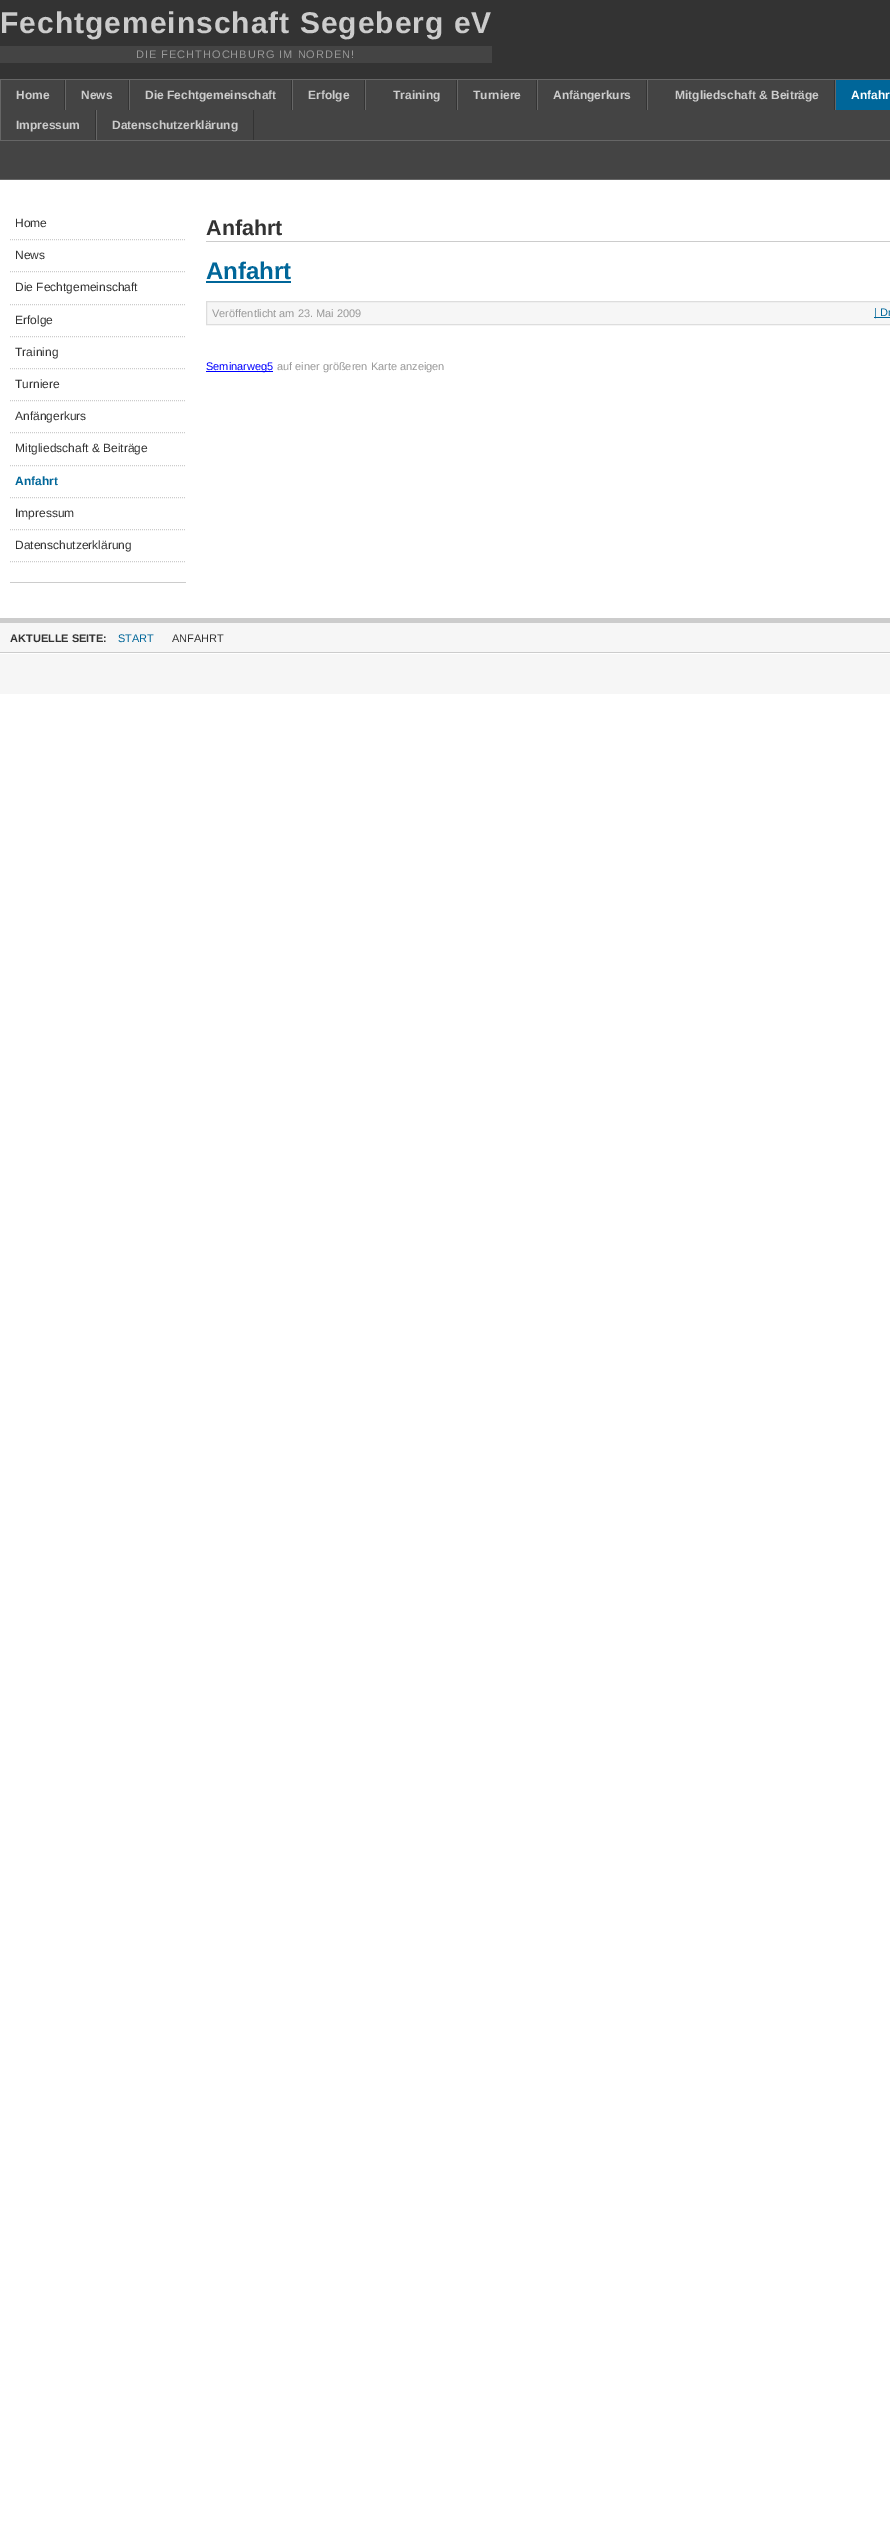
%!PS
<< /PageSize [890 2530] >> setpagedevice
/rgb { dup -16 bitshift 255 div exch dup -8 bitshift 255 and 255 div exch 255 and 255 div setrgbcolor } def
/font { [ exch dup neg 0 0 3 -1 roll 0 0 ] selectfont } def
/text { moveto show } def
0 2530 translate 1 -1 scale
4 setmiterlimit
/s1 { /LiberationSans-Bold 12 font 16#CCCCCC rgb } def
/s2 { /LiberationSans-Bold 12 font 16#FFFFFF rgb } def
/s3 { /LiberationSans-Regular 12 font 16#333333 rgb } def
/s4 { /LiberationSans-Bold 12 font 16#006699 rgb } def
/s5 { /LiberationSans-Bold 21.5 font 16#333333 rgb } def
/s6 { /LiberationSans-Bold 24 font 16#006699 rgb } def
/s7 { /LiberationSans-Regular 11 font 16#999999 rgb } def
/s8 { /LiberationSans-Regular 11 font 16#006699 rgb } def
/s9 { /LiberationSans-Regular 11 font 16#0000FF rgb } def
/s10 { /LiberationSans-Bold 11 font 16#333333 rgb } def
/s11 { /LiberationSans-Regular 11 font 16#333333 rgb } def
16#FFFFFF rgb
0 0 890 2530 rectfill
16#333333 rgb
0 0 890 79 rectfill
/LiberationSans-Bold 30 font
16#CCCCCC rgb
0 33 moveto 1 0 (Fechtgemeinschaft Segeberg eV) ashow
16#444444 rgb
0 46 492 17 rectfill
/LiberationSans-Regular 11 font
16#999999 rgb
136 58 moveto 1 0 (DIE FECHTHOCHBURG IM NORDEN!) ashow
16#444444 rgb
1 80 889 60 rectfill
16#666666 rgb
0 79 890 1 rectfill
16#333333 rgb
64 80 1 30 rectfill
16#666666 rgb
0 80 1 60 rectfill
s1
(Home) 16 99 text
16#333333 rgb
128 80 1 30 rectfill
16#666666 rgb
65 80 1 30 rectfill
s1
(News) 81 99 text
16#333333 rgb
291 80 1 30 rectfill
16#666666 rgb
129 80 1 30 rectfill
s1
(Die Fechtgemeinschaft) 145 99 text
16#333333 rgb
364 80 1 30 rectfill
16#666666 rgb
292 80 1 30 rectfill
s1
(Erfolge) 308 99 text
16#333333 rgb
456 80 1 30 rectfill
16#666666 rgb
365 80 1 30 rectfill
s1
(Training) 393 99 text
16#333333 rgb
536 80 1 30 rectfill
16#666666 rgb
457 80 1 30 rectfill
s1
(Turniere) 473 99 text
16#333333 rgb
646 80 1 30 rectfill
16#666666 rgb
537 80 1 30 rectfill
s1
(Anfängerkurs) 553 99 text
16#333333 rgb
834 80 1 30 rectfill
16#666666 rgb
647 80 1 30 rectfill
s1
(Mitgliedschaft & Beiträge) 675 99 text
16#006699 rgb
836 80 54 30 rectfill
16#666666 rgb
835 80 1 30 rectfill
s2
(Anfahr) 851 99 text
16#333333 rgb
95 110 1 30 rectfill
s1
(Impressum) 16 129 text
16#333333 rgb
253 110 1 30 rectfill
16#666666 rgb
96 110 1 30 rectfill
s1
(Datenschutzerklärung) 112 129 text
16#444444 rgb
0 141 890 38 rectfill
16#666666 rgb
0 140 890 1 rectfill
0 179 890 1 rectfill
16#CCCCCC rgb
0 618 890 5 rectfill
10 582 176 1 rectfill
[1 1] 0 setdash
10 239.5 moveto 186 239.5 lineto stroke
s3
(Home) 15 227 text
16#CCCCCC rgb
10 271.5 moveto 186 271.5 lineto stroke
s3
(News) 15 259 text
16#CCCCCC rgb
10 304.5 moveto 186 304.5 lineto stroke
s3
(Die Fechtgemeinschaft) 15 291 text
16#CCCCCC rgb
10 336.5 moveto 186 336.5 lineto stroke
s3
(Erfolge) 15 324 text
16#CCCCCC rgb
10 368.5 moveto 186 368.5 lineto stroke
s3
(Training) 15 356 text
16#CCCCCC rgb
10 400.5 moveto 186 400.5 lineto stroke
s3
(Turniere) 15 388 text
16#CCCCCC rgb
10 432.5 moveto 186 432.5 lineto stroke
s3
(Anfängerkurs) 15 420 text
16#CCCCCC rgb
10 465.5 moveto 186 465.5 lineto stroke
s3
(Mitgliedschaft & Beiträge) 15 452 text
16#CCCCCC rgb
10 497.5 moveto 186 497.5 lineto stroke
s4
(Anfahrt) 15 485 text
16#CCCCCC rgb
10 529.5 moveto 186 529.5 lineto stroke
s3
(Impressum) 15 517 text
16#CCCCCC rgb
10 561.5 moveto 186 561.5 lineto stroke
s3
(Datenschutzerklärung) 15 549 text
16#CCCCCC rgb
206 241 684 1 rectfill
s5
(Anfahrt) 206 235 text
s6
(Anfahrt) 206 279 text
206 281 85 2 rectfill
16#F6F6F6 rgb
206.5 301.5 moveto 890.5 301.5 lineto 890.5 324.5 lineto 206.5 324.5 lineto closepath gsave fill grestore
16#DDDDDD rgb
[] 0 setdash
stroke
s7
(Veröffentlicht am 23. Mai 2009) 212 317 text
16#006699 rgb
874 317 16 1 rectfill
(| Dr) 874 316 text
16#0000FF rgb
206 371 67 1 rectfill
(Seminarweg5) 206 370 text
s7
(auf einer größeren Karte anzeigen) 277 370 text
16#F6F6F6 rgb
0 623 890 29 rectfill
16#CCCCCC rgb
0 652 890 1 rectfill
s10
(AKTUELLE SEITE:) 10 642 text
s8
(START) 118 642 text
s11
(ANFAHRT) 172 642 text
16#F6F6F6 rgb
0 654 890 40 rectfill
showpage
